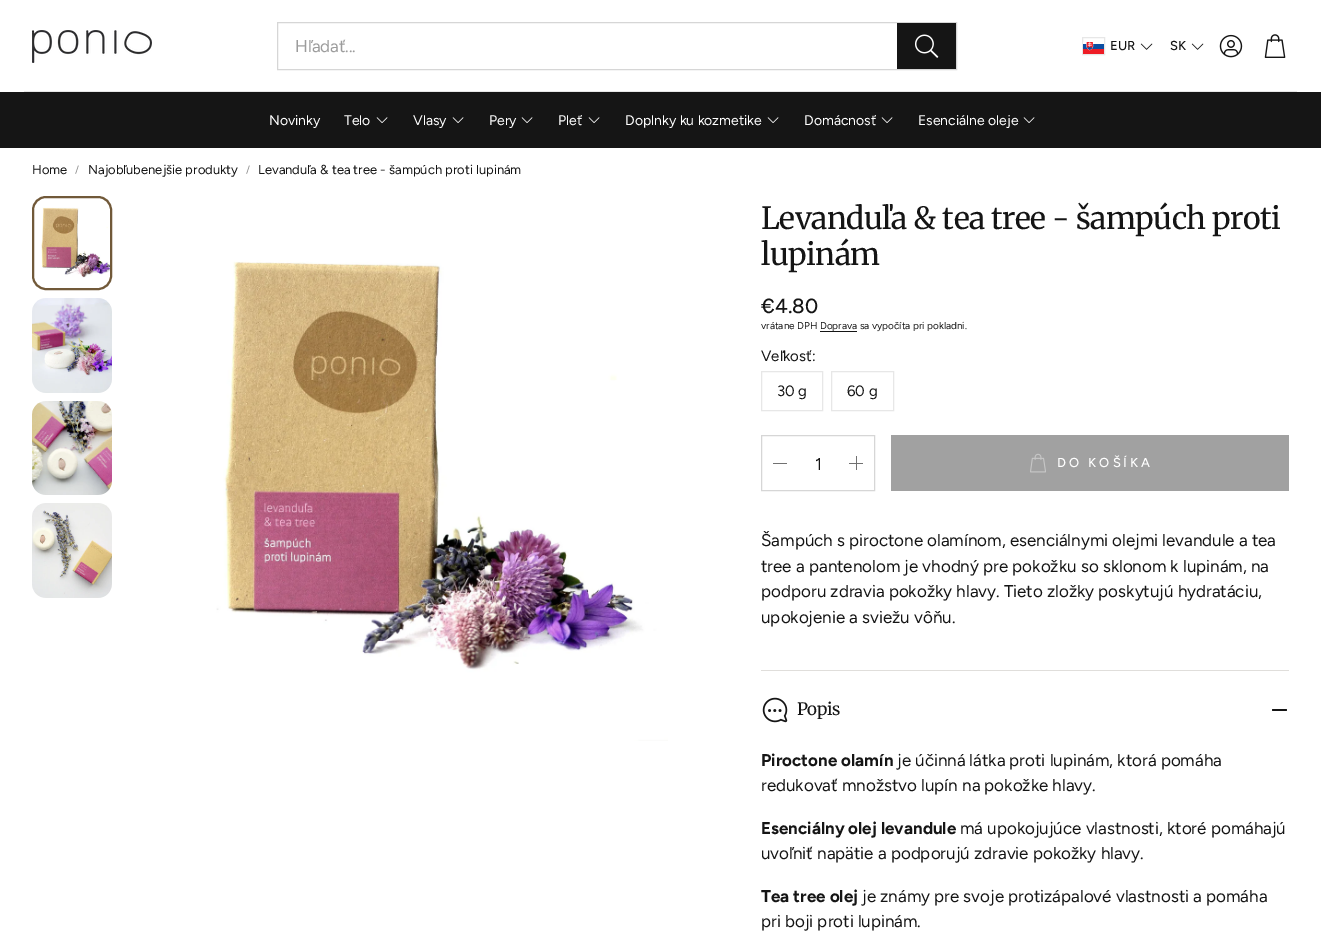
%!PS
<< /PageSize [1321 936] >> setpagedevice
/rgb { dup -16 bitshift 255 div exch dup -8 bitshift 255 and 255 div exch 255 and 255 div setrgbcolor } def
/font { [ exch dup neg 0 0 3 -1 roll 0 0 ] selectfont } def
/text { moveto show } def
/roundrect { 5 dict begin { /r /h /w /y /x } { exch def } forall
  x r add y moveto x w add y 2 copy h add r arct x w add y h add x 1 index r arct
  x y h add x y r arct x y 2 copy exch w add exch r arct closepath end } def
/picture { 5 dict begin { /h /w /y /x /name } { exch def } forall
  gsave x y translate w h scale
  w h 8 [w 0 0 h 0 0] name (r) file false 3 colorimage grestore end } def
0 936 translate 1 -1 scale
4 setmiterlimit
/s1 { /Figtree-Regular 17 font 16#9C9C9C rgb } def
/s2 { /Figtree-Medium 13 font 16#151515 rgb } def
/s3 { /Figtree-Regular 14 font 16#FFFFFF rgb } def
/s4 { /Figtree-Regular 13 font 16#151515 rgb } def
/s5 { /Figtree-Regular 10 font 16#8A8A8A rgb } def
/s6 { /Figtree-Medium 20.5 font 16#151515 rgb } def
/s7 { /Figtree-Regular 10 font 16#151515 rgb } def
/s8 { /Figtree-Regular 15 font 16#151515 rgb } def
/s9 { /Figtree-Regular 17 font 16#151515 rgb } def
/s10 { /Figtree-Bold 17 font 16#151515 rgb } def
16#FFFFFF rgb
0 0 1321 936 rectfill
(pic1.raw) 32 30 120 33 picture
16#D6D6D6 rgb
277.5 22.5 679 47 rectstroke
s1
(Hľadať...) 295 52 text
16#151515 rgb
897 23 59 46 rectfill
(pic2.raw) 915 34 24 24 picture
16#E7E7E7 rgb
1082.5 37.5 22 17 rectstroke
(pic3.raw) 1083 42 21 12 picture
s2
(EUR) 1110 50 text
(pic4.raw) 1140 43 13 7 picture
(SK) 1170 50 text
(pic4.raw) 1191 43 13 7 picture
(pic5.raw) 1219 34 24 24 picture
(pic6.raw) 1264 34 22 24 picture
16#E7E7E7 rgb
24 91 1273 1 rectfill
16#151515 rgb
0 92 1321 56 rectfill
s3
(Novinky) 269 125 text
(Telo) 344 125 text
(pic7.raw) 376 117 12 6 picture
(Vlasy) 413 125 text
(pic7.raw) 452 117 12 6 picture
(Pery) 489 125 text
(pic7.raw) 521 117 12 6 picture
(Pleť) 558 125 text
(pic7.raw) 588 117 12 6 picture
(Doplnky ku kozmetike) 625 125 text
(pic7.raw) 767 117 12 6 picture
(Domácnosť) 804 125 text
(pic7.raw) 881 117 12 6 picture
(Esenciálne oleje) 918 125 text
(pic7.raw) 1023 117 12 6 picture
s4
(Home) 32 174 text
s5
(/) 75 173 text
s4
(Najobľubenejšie produkty) 88 174 text
s5
(/) 246 173 text
s4
(Levanduľa & tea tree - šampúch proti lupinám) 258 174 text
(pic8.raw) 41 207 71 71 picture
16#715939 rgb
2 setlinewidth
33 197 78 92 13 roundrect stroke
(pic9.raw) 32 298 80 95 picture
(pic10.raw) 32 401 80 94 picture
(pic11.raw) 32 503 80 95 picture
(pic12.raw) 216 260 452 481 picture
/Merriweather-Regular 30.6 font
16#151515 rgb
761 229 moveto -0.5 0 (Levanduľa & tea tree - šampúch proti) ashow
761 265 moveto -0.5 0 (lupinám) ashow
s6
(€4.80) 761 313 text
s7
(vrátane DPH Doprava sa vypočíta pri pokladni.) 761 329 text
820 331 37 1 rectfill
s8
(Veľkosť:) 761 361 text
16#E7E7E7 rgb
1 setlinewidth
761.5 371.5 61 39 rectstroke
s8
(30 g) 777 396 text
16#E7E7E7 rgb
831.5 371.5 62 39 rectstroke
s8
(60 g) 847 396 text
16#D6D6D6 rgb
761.5 435.5 113 55 rectstroke
16#717171 rgb
773 463 14 1 0.5 roundrect fill
s9
(1) 815 470 text
16#717171 rgb
849 463 14 1 0.5 roundrect fill
856 456 1 14 0.5 roundrect fill
16#A1A1A1 rgb
891 435 398 56 rectfill
(pic13.raw) 1030 453 16 20 picture
/Figtree-Medium 13 font
16#FFFFFF rgb
1057 467 moveto 3 0 (DO KOŠÍKA) ashow
s9
(Šampúch s piroctone olamínom, esenciálnymi olejmi levandule a tea) 761 546 text
(tree a pantenolom je vhodný pre pokožku so sklonom k lupinám, na) 761 572 text
(podporu zdravia pokožky hlavy. Tieto zložky poskytujú hydratáciu,) 761 597 text
(upokojenie a sviežu vôňu.) 761 623 text
16#E0DEDB rgb
761 670 528 1 rectfill
(pic14.raw) 762 697 26 26 picture
/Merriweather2-Regular 17 font
16#151515 rgb
797 715 moveto -0.5 0 (Popis) ashow
1272 709 15 2 1 roundrect fill
s10
(Piroctone olamín) 761 766 text
s9
(je účinná látka proti lupinám, ktorá pomáha) 897 766 text
(redukovať množstvo lupín na pokožke hlavy.) 761 791 text
s10
(Esenciálny olej levandule) 761 834 text
s9
(má upokojujúce vlastnosti, ktoré pomáhajú) 960 834 text
(uvoľniť napätie a podporujú zdravie pokožky hlavy.) 761 859 text
s10
(Tea tree olej) 761 902 text
s9
(je známy pre svoje protizápalové vlastnosti a pomáha) 862 902 text
(pri boji proti lupinám.) 761 927 text
showpage
